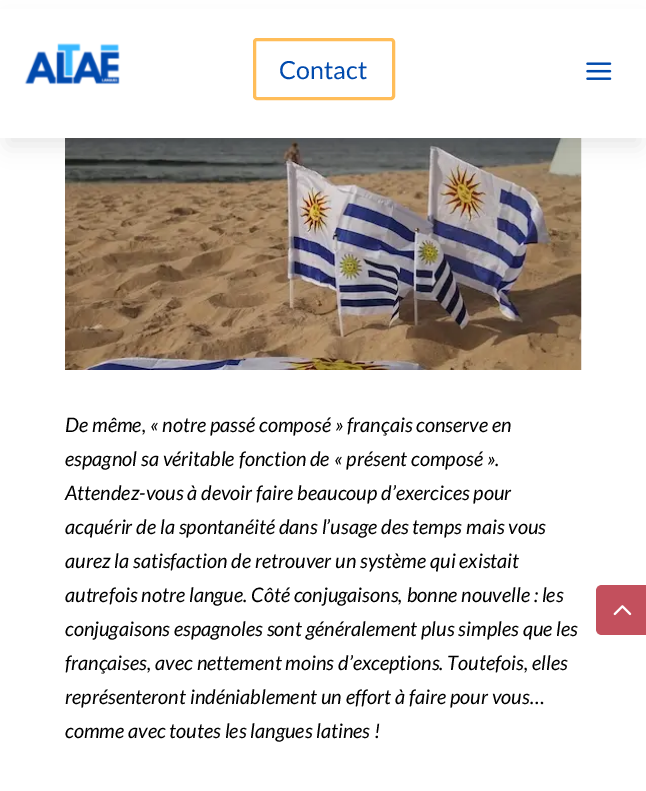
%!PS
<< /PageSize [646 791] /PageUsesTransparency true >> setpagedevice
/rgb { dup -16 bitshift 255 div exch dup -8 bitshift 255 and 255 div exch 255 and 255 div setrgbcolor } def
/font { [ exch dup neg 0 0 3 -1 roll 0 0 ] selectfont } def
/text { moveto show } def
/alpha { dup .setfillconstantalpha .setstrokeconstantalpha } def
/roundrect { 5 dict begin { /r /h /w /y /x } { exch def } forall
  x r add y moveto x w add y 2 copy h add r arct x w add y h add x 1 index r arct
  x y h add x y r arct x y 2 copy exch w add exch r arct closepath end } def
/shadow { 12 dict begin { /a /b /q /h /w /y /x } { exch def } forall gsave /was 0 def
  9 -2 -9 { dup b mul 4 div /e exch def 1 sub .425 mul 2.718 exch exp 1 add a .99 .min exch div /now exch def
    1 1 now sub 1 was sub div sub alpha /was now def
    w h .min e 2 mul add 0 gt { x e sub y e sub w e 2 mul add h e 2 mul add
      q e add b .6 mul add w h .min 2 div e add .min 0 .max roundrect fill } if } for grestore end } def
/picture { 5 dict begin { /h /w /y /x /name } { exch def } forall
  gsave x y translate w h scale
  w h 8 [w 0 0 h 0 0] name (r) file false 3 colorimage grestore end } def
0 .pushpdf14devicefilter
0 791 translate 1 -1 scale
4 setmiterlimit
/s1 { /Lato-Regular 25 font 16#004AAD rgb } def
/s2 { /Lato-Italic 20 font 16#000000 rgb } def
16#FFFFFF rgb
0 0 646 791 rectfill
(pic3.raw) 65 138 517 232 picture
16#000000 rgb
8 23 631 122 0 11 0.1 shadow
16#FFFFFF rgb
0 9 646 129 rectfill
(pic1.raw) 24 43 96 42 picture
(pic2.raw) 586 62 26 18 picture
16#FFBD59 rgb
3 setlinewidth
254.5 39.5 139 59 2.5 roundrect stroke
s1
(Contact) 279 79 text
s2
(De même, « notre passé composé » français conserve en) 65 432 text
(espagnol sa véritable fonction de « présent composé ».) 65 466 text
(Attendez-vous à devoir faire beaucoup d’exercices pour) 65 500 text
(acquérir de la spontanéité dans l’usage des temps mais vous) 65 534 text
(aurez la satisfaction de retrouver un système qui existait) 65 568 text
(autrefois notre langue. Côté conjugaisons, bonne nouvelle : les) 65 602 text
(conjugaisons espagnoles sont généralement plus simples que les) 65 636 text
(françaises, avec nettement moins d’exceptions. Toutefois, elles) 65 670 text
(représenteront indéniablement un effort à faire pour vous…) 65 704 text
(comme avec toutes les langues latines !) 65 738 text
16#C3505D rgb
602 585 moveto 646 585 lineto 646 635 lineto 602 635 lineto 598.5 635 596 632.5 596 629 curveto 596 591 lineto 596 587.5 598.5 585 602 585 curveto closepath fill
(pic4.raw) 613 605 19 11 picture
.poppdf14devicefilter showpage
